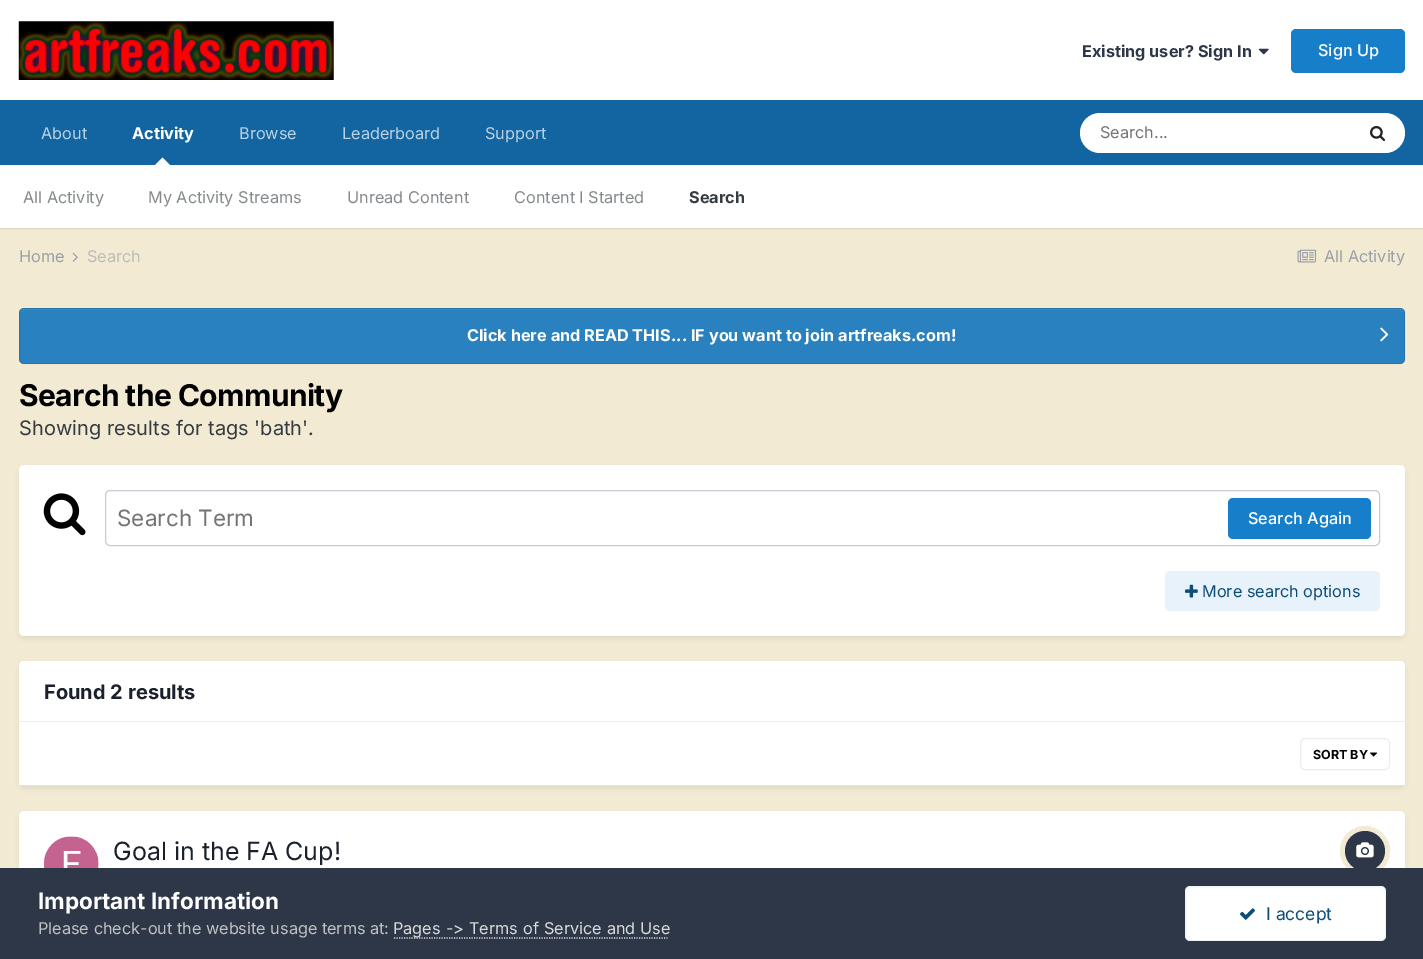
%!PS
<< /PageSize [1423 959] /PageUsesTransparency true >> setpagedevice
/rgb { dup -16 bitshift 255 div exch dup -8 bitshift 255 and 255 div exch 255 and 255 div setrgbcolor } def
/font { [ exch dup neg 0 0 3 -1 roll 0 0 ] selectfont } def
/text { moveto show } def
/alpha { dup .setfillconstantalpha .setstrokeconstantalpha } def
/circle { newpath 0 360 arc closepath } def
/roundrect { 5 dict begin { /r /h /w /y /x } { exch def } forall
  x r add y moveto x w add y 2 copy h add r arct x w add y h add x 1 index r arct
  x y h add x y r arct x y 2 copy exch w add exch r arct closepath end } def
/shadow { 12 dict begin { /a /b /q /h /w /y /x } { exch def } forall gsave /was 0 def
  9 -2 -9 { dup b mul 4 div /e exch def 1 sub .425 mul 2.718 exch exp 1 add a .99 .min exch div /now exch def
    1 1 now sub 1 was sub div sub alpha /was now def
    w h .min e 2 mul add 0 gt { x e sub y e sub w e 2 mul add h e 2 mul add
      q e add b .6 mul add w h .min 2 div e add .min 0 .max roundrect fill } if } for grestore end } def
/picture { 5 dict begin { /h /w /y /x /name } { exch def } forall
  gsave x y translate w h scale
  w h 8 [w 0 0 h 0 0] name (r) file false 3 colorimage grestore end } def
0 .pushpdf14devicefilter
0 959 translate 1 -1 scale
4 setmiterlimit
/s1 { /Inter-Bold 16.25 font 16#2D3748 rgb } def
/s2 { /Inter-Medium 16.25 font 16#FFFFFF rgb } def
/s3 { /Inter-Bold 16.25 font 16#FFFFFF rgb } def
/s4 { /Inter-Regular 16.25 font 16#868A8D rgb } def
/s5 { /Inter-Bold 16.25 font 16#353C41 rgb } def
/s6 { /Inter-Regular 16.25 font 16#B8D1E3 rgb } def
/s7 { /Inter-Regular 16.25 font 16#757575 rgb } def
/s8 { /Inter-Regular 16.25 font 16#98A0A8 rgb } def
/s9 { /Inter-Regular 16.25 font 16#BCBDB9 rgb } def
/s10 { /Inter-Regular 20 font 16#353C41 rgb } def
/s11 { /Inter-Regular 22.5 font 16#757575 rgb } def
/s12 { /Inter-Regular 16.25 font 16#0E4C79 rgb } def
/s13 { /Inter-Bold 20 font 16#1A202C rgb } def
/s14 { /Inter-Bold 12.5 font 16#000000 rgb } def
/s15 { /Inter-Regular 25 font 16#1A202C rgb } def
/s16 { /Inter-Bold 22.5 font 16#FFFFFF rgb } def
/s17 { /Inter-Regular 16.25 font 16#C0C0C0 rgb } def
/s18 { /Inter-Regular 17.5 font 16#0E4C79 rgb } def
16#F2EAD2 rgb
0 0 1423 959 rectfill
16#FFFFFF rgb
0 0 1423 100 rectfill
(pic1.raw) 18 21 316 59 picture
s1
(Existing user? Sign In) 1082 57 text
(pic2.raw) 1258 48 11 7 picture
16#177EC9 rgb
1291 29 114 44 5 roundrect fill
s2
(Sign Up) 1318 56 text
16#1265A1 rgb
0 100 1423 65 rectfill
s3
(Activity) 132 139 text
16#000000 rgb
0 166 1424 63 0 1 0.1 shadow
16#FFFFFF rgb
170 165 moveto 155 165 lineto 162.5 157.5 lineto closepath fill
0 165 1423 63 rectfill
s4
(All Activity) 23 203 text
(My Activity Streams) 148 203 text
(Unread Content) 347 203 text
(Content I Started) 514 203 text
s5
(Search) 689 203 text
s6
(About) 41 139 text
(Browse) 239 139 text
(Leaderboard) 342 139 text
(Support) 485 139 text
16#FFFFFF rgb
1080 113 325 40 20 roundrect fill
s7
(Search...) 1100 138 text
(pic3.raw) 1370 126 16 15 picture
s8
(Home) 19 262 text
(pic4.raw) 72 252 6 10 picture
s9
(Search) 87 262 text
(pic5.raw) 1297 249 20 14 picture
s8
(All Activity) 1324 262 text
16#2981BF rgb
19 308 1386 56 5 roundrect fill
16#3E8EC5 rgb
24 310 moveto 1400 310 lineto 1402 310 1404 312 1404 314 curveto 1404 313 lineto 1404 311 1402 309 1400 309 curveto 24 309 lineto 22 309 20 311 20 313 curveto 20 314 lineto 20 312 22 310 24 310 curveto closepath fill
0.1 alpha
16#000000 rgb
19.5 308.5 1385 55 4.5 roundrect stroke
1 alpha
s3
(Click here and READ THIS... IF you want to join artfreaks.com!) 467 341 text
(pic6.raw) 1380 327 9 15 picture
/Inter-Bold 30 font
16#000000 rgb
19 406 moveto -0.6 0 (Search the Community) ashow
s10
(Showing results for tags 'bath'.) 19 435 text
16#2D3748 rgb
20 469 1384 169 4 2.5 0.1 shadow
16#FFFFFF rgb
19 465 1386 171 5 roundrect fill
(pic7.raw) 43 493 43 43 picture
16#C6CCD5 rgb
105.5 490.5 1274 55 4.5 roundrect stroke
s11
(Search Term) 117 526 text
16#177EC9 rgb
1228 498 143 41 5 roundrect fill
s2
(Search Again) 1248 524 text
16#E8F2FA rgb
1165 571 215 40 5 roundrect fill
(pic8.raw) 1185 584 13 14 picture
s12
(More search options) 1202 597 text
16#2D3748 rgb
20 665 1384 123 4 2.5 0.1 shadow
16#FFFFFF rgb
24 661 moveto 1400 661 lineto 1403 661 1405 663 1405 666 curveto 1405 723 lineto 19 723 lineto 19 666 lineto 19 663 21 661 24 661 curveto closepath fill
16#EAECEF rgb
19 721 1386 1 rectfill
s13
(Found 2 results) 44 699 text
16#FFFFFF rgb
19 723 1386 62 rectfill
16#E1E2E3 rgb
19 785 1386 1 rectfill
(pic9.raw) 1370 752 8 5 picture
16#EBECEC rgb
1300.5 738.5 89 31 4.5 roundrect stroke
s14
(SORT BY) 1313 759 text
16#2D3748 rgb
20 815 1384 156 4 2.5 0.1 shadow
16#FFFFFF rgb
19 811 1386 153 5 roundrect fill
(pic10.raw) 44 836 55 32 picture
s15
(Goal in the FA Cup!) 113 860 text
16#F2EAD2 rgb
5 setlinewidth
1365 851 22.5 circle stroke
16#2D3748 rgb
1365 851 20 circle fill
(pic11.raw) 1356 842 18 16 picture
0 868 1423 91 rectfill
s16
(Important Information) 38 909 text
s17
(Please check-out the website usage terms at:) 38 934 text
16#DADADA rgb
1.2 setlinewidth
[1.25 1.25] 0 setdash
394 938 moveto 667.5 938 lineto stroke
393 934 moveto 0.5 0 32 (Pages -> Terms of Service and Use) widthshow
16#FFFFFF rgb
1185 886 201 55 5 roundrect fill
0.07 alpha
16#0E4C79 rgb
1 setlinewidth
[] 0 setdash
1185.5 886.5 200 54 4.5 roundrect stroke
1 alpha
(pic12.raw) 1240 908 15 12 picture
s18
(I accept) 1266 920 text
.poppdf14devicefilter showpage
